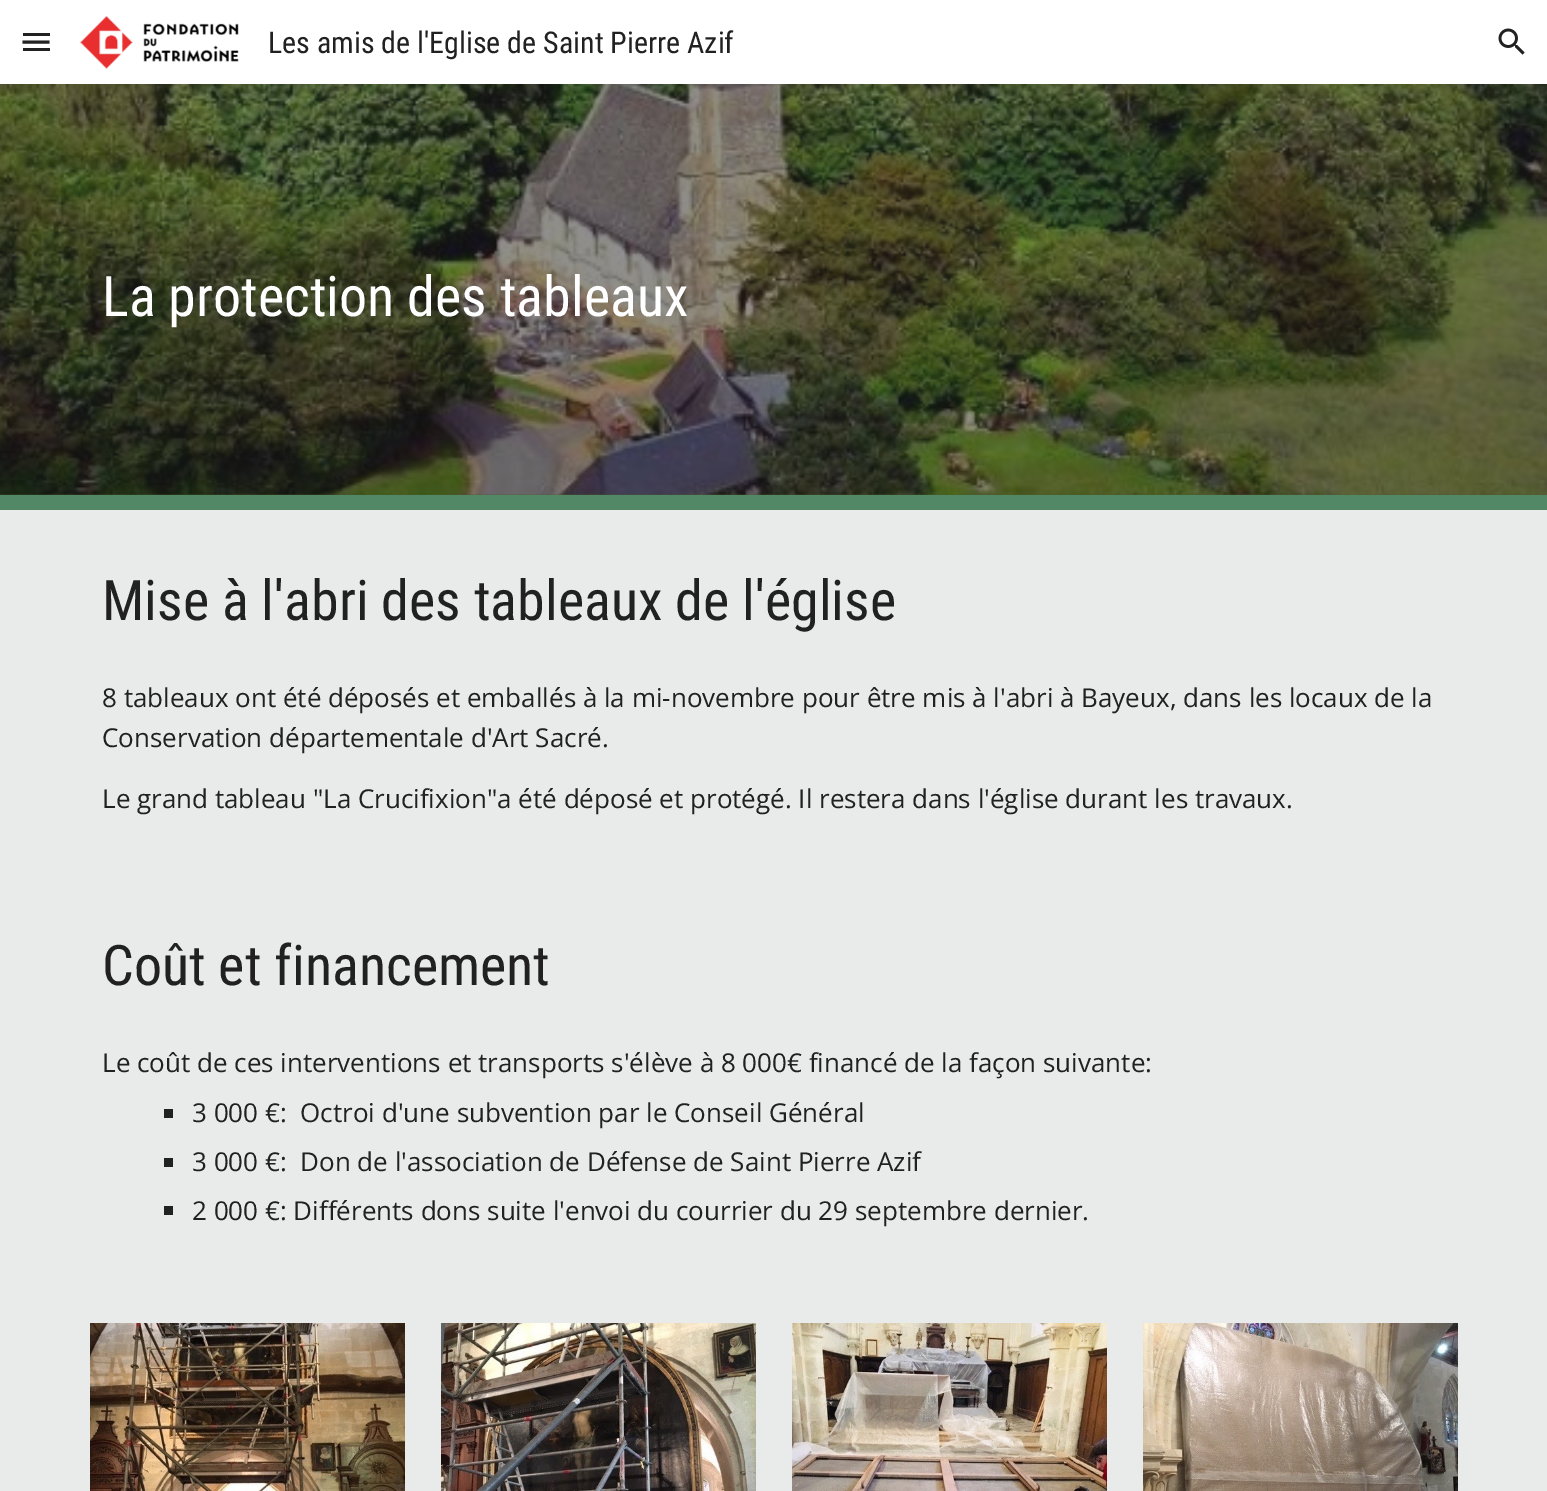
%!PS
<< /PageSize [1547 1491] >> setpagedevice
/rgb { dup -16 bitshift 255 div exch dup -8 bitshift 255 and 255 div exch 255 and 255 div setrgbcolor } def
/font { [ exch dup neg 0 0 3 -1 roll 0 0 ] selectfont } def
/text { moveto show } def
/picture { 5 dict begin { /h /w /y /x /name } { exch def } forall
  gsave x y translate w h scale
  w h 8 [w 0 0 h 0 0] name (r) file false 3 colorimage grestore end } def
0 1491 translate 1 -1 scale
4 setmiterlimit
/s1 { /RobotoCondensed-Regular 30 font 16#212121 rgb } def
/s2 { /RobotoCondensed-Regular 56 font 16#FFFFFF rgb } def
/s3 { /RobotoCondensed-Regular 56 font 16#212121 rgb } def
/s4 { /OpenSans-Regular 26 font 16#212121 rgb } def
16#E8EBE9 rgb
0 0 1547 1491 rectfill
16#FFFFFF rgb
0 0 1547 84 rectfill
16#212121 rgb
23 33 27 3 rectfill
3 setlinewidth
22.5 42 moveto 49.5 42 lineto stroke
23 48 27 3 rectfill
(pic1.raw) 79 16 160 53 picture
s1
(Les amis de l'Eglise de Saint Pierre Azif) 268 53 text
(pic2.raw) 1498 28 27 27 picture
(pic3.raw) 0 84 1547 411 picture
16#528866 rgb
0 495 1547 15 rectfill
s2
(La protection des tableaux) 102 316 text
s3
(Mise à l'abri des tableaux de l'église) 102 620 text
s4
(8 tableaux ont été déposés et emballés à la mi-novembre pour être mis à l'abri à Bayeux, dans les locaux de la) 102 707 text
(Conservation départementale d'Art Sacré.) 102 747 text
(Le grand tableau "La Crucifixion"a été déposé et protégé. Il restera dans l'église durant les travaux.) 102 808 text
s3
(Coût et financement) 102 985 text
s4
(Le coût de ces interventions et transports s'élève à 8 000€ financé de la façon suivante:) 102 1072 text
164 1109 9 9 rectfill
(3 000 €:  Octroi d'une subvention par le Conseil Général) 192 1122 text
164 1158 9 9 rectfill
(3 000 €:  Don de l'association de Défense de Saint Pierre Azif) 192 1171 text
164 1206 9 9 rectfill
(2 000 €: Différents dons suite l'envoi du courrier du 29 septembre dernier.) 192 1220 text
(pic4.raw) 90 1323 315 168 picture
(pic5.raw) 441 1323 315 168 picture
(pic6.raw) 792 1323 315 168 picture
(pic7.raw) 1143 1323 315 168 picture
showpage
